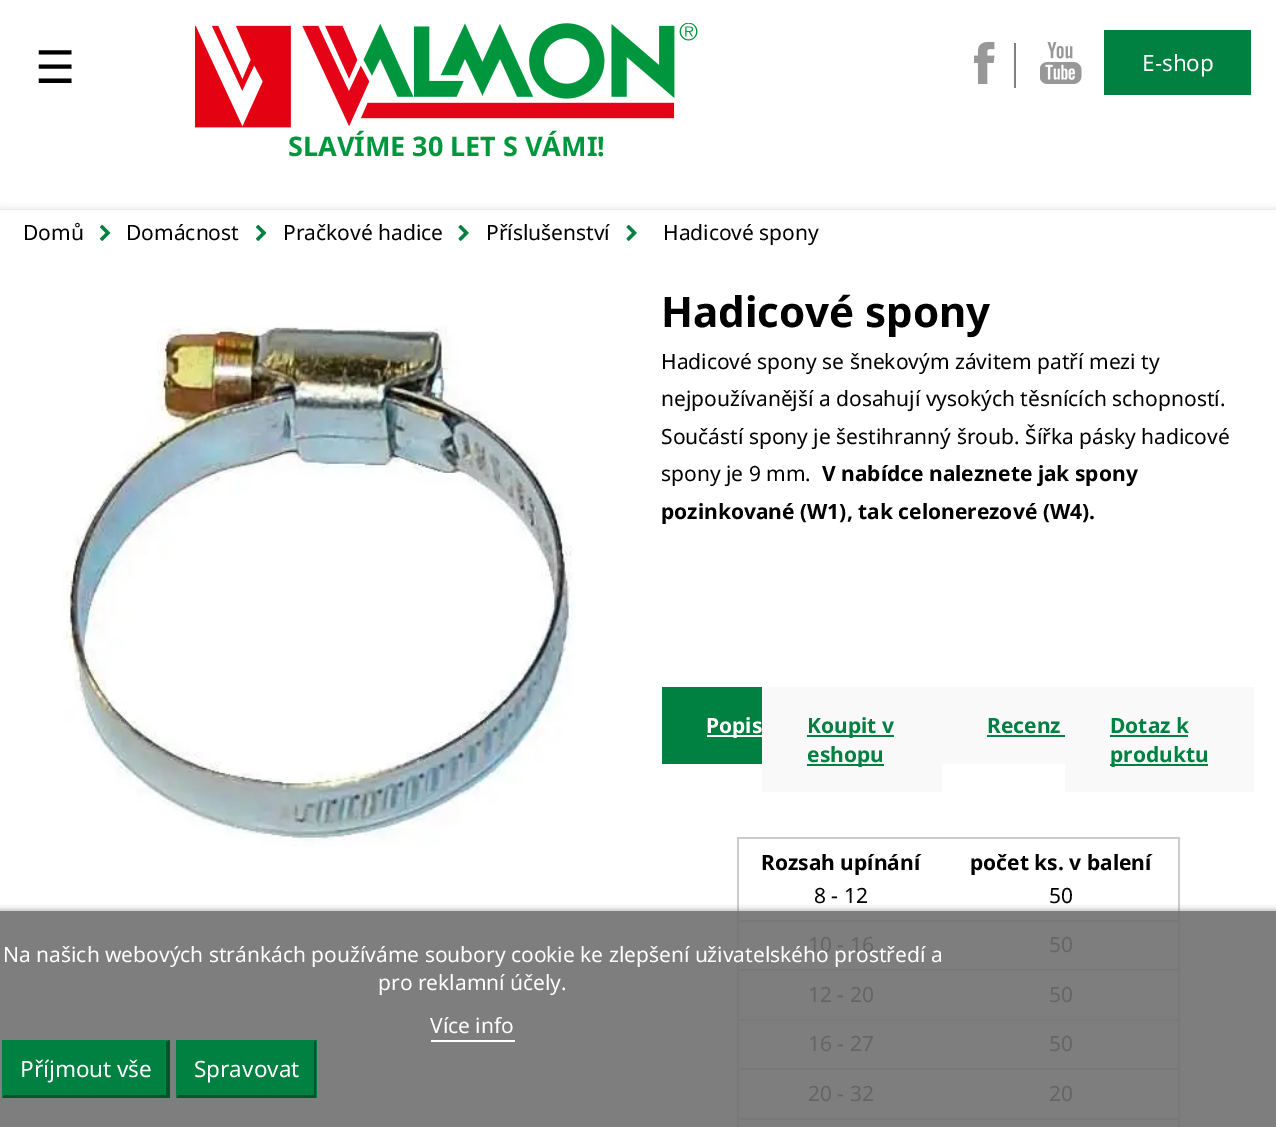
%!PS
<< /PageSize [1276 1127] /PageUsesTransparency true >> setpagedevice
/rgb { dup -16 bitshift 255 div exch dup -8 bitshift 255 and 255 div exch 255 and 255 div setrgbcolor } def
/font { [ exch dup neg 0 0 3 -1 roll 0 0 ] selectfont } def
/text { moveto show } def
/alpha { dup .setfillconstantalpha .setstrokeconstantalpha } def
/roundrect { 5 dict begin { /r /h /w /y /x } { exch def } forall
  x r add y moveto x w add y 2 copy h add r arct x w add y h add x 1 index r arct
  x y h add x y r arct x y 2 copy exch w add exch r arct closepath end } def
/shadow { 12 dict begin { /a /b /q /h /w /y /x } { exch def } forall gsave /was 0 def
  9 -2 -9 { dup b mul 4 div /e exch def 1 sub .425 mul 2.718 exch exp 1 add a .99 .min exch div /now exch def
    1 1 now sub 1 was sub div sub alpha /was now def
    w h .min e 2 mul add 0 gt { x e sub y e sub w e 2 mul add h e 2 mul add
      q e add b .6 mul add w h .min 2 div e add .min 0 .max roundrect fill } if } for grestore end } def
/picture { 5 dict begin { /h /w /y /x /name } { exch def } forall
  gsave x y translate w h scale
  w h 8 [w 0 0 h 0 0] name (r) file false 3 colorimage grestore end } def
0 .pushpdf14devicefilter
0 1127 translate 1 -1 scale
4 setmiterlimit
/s1 { /DejaVuSans-Regular 45 font 16#000000 rgb } def
/s2 { /NotoSans-Regular 22.5 font 16#FFFFFF rgb } def
/s3 { /NotoSans-Bold 27 font 16#00963E rgb } def
/s4 { /NotoSans-Regular 21 font 16#000000 rgb } def
/s5 { /NotoSans-Bold 42 font 16#000000 rgb } def
/s6 { /NotoSans-Bold 21 font 16#000000 rgb } def
/s7 { /NotoSans-Bold 21 font 16#FFFFFF rgb } def
/s8 { /NotoSans-Bold 21 font 16#008041 rgb } def
/s9 { /NotoSans-Regular 21 font 16#656565 rgb } def
/s10 { /NotoSans-Regular 21 font 16#FFFFFF rgb } def
16#FFFFFF rgb
0 0 1276 1127 rectfill
s1
(☰) 35 83 text
(pic1.raw) 974 42 21 42 picture
16#808080 rgb
1014 43 2 45 rectfill
(pic2.raw) 1040 42 42 42 picture
16#008041 rgb
1104 30 147 65 rectfill
s2
(E-shop) 1142 71 text
(pic3.raw) 195 23 503 105 picture
s3
(SLAVÍME 30 LET S VÁMI!) 288 156 text
16#000000 rgb
0 210 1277 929 0 4 0.15 shadow
16#FFFFFF rgb
0 210 1276 701 rectfill
16#7E7E7E rgb
0 911 1276 216 rectfill
s4
(Domů) 23 240 text
(pic4.raw) 99 224 12 17 picture
(Domácnost) 126 240 text
(pic4.raw) 255 224 12 17 picture
(Pračkové hadice) 283 240 text
(pic5.raw) 458 224 11 17 picture
(Příslušenství) 486 240 text
(pic5.raw) 626 224 11 17 picture
(Hadicové spony) 663 240 text
(pic6.raw) 61 325 515 522 picture
s5
(Hadicové spony) 661 327 text
s4
(Hadicové spony se šnekovým závitem patří mezi ty) 661 369 text
(nejpoužívanější a dosahují vysokých těsnících schopností.) 661 406 text
(Součástí spony je šestihranný šroub. Šířka pásky hadicové) 661 444 text
(spony je 9 mm.) 661 481 text
s6
(V nabídce naleznete jak spony) 822 481 text
(pozinkované \(W1\), tak celonerezové \(W4\).) 661 519 text
16#008041 rgb
662 687 100 77 rectfill
16#FFFFFF rgb
707 735 55 2 rectfill
(Popis) 706 733 text
16#F9F9F9 rgb
762 687 180 105 rectfill
16#008041 rgb
807 735 87 2 rectfill
(Koupit v) 807 733 text
807 764 77 2 rectfill
(eshopu) 807 762 text
16#F9F9F9 rgb
942 687 123 77 rectfill
s8
(Recenz) 987 733 text
987 735 78 2 rectfill
16#F9F9F9 rgb
1065 687 189 105 rectfill
s8
(Dotaz k) 1110 733 text
1110 735 78 2 rectfill
1110 764 98 2 rectfill
(produktu) 1110 762 text
16#CCCCCC rgb
737 837 442 2 rectfill
1178 878 2 33 rectfill
1178 837 2 42 rectfill
737 878 2 33 rectfill
737 837 2 42 rectfill
s6
(Rozsah upínání) 761 870 text
(počet ks. v balení) 970 870 text
s4
(8 - 12) 814 903 text
(50) 1049 903 text
16#797979 rgb
737 920 442 2 rectfill
737 969 442 2 rectfill
737 1019 442 2 rectfill
737 1068 442 2 rectfill
737 1118 442 2 rectfill
1178 1118 2 9 rectfill
1178 1068 2 51 rectfill
1178 1019 2 51 rectfill
1178 969 2 51 rectfill
1178 911 2 60 rectfill
737 1118 2 9 rectfill
737 1068 2 51 rectfill
737 1019 2 51 rectfill
737 969 2 51 rectfill
737 911 2 60 rectfill
s9
(10 - 16) 808 952 text
(50) 1049 952 text
(12 - 20) 808 1002 text
(50) 1049 1002 text
(16 - 27) 808 1051 text
(50) 1049 1051 text
(20 - 32) 808 1101 text
(20) 1049 1101 text
gsave
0 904 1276 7 rectclip
16#707070 rgb
0 912 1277 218 0 4 1 shadow
grestore
s10
(Na našich webových stránkách používáme soubory cookie ke zlepšení uživatelského prostředí a) 3 962 text
(pro reklamní účely.) 378 990 text
(Více info) 430 1033 text
431 1040 84 2 rectfill
16#008041 rgb
2 1040 168 58 rectfill
16#00552B rgb
170 1040 moveto 170 1098 lineto 166 1095 lineto 166 1042 lineto closepath fill
170 1098 moveto 2 1098 lineto 4 1095 lineto 166 1095 lineto closepath fill
16#008041 rgb
2 1098 moveto 2 1040 lineto 4 1042 lineto 4 1095 lineto closepath fill
s2
(Příjmout vše) 20 1077 text
16#008041 rgb
176 1040 141 58 rectfill
16#00552B rgb
316 1040 moveto 316 1098 lineto 314 1095 lineto 314 1042 lineto closepath fill
316 1098 moveto 176 1098 lineto 178 1095 lineto 314 1095 lineto closepath fill
16#008041 rgb
176 1098 moveto 176 1040 lineto 178 1042 lineto 178 1095 lineto closepath fill
s2
(Spravovat) 194 1077 text
.poppdf14devicefilter showpage
